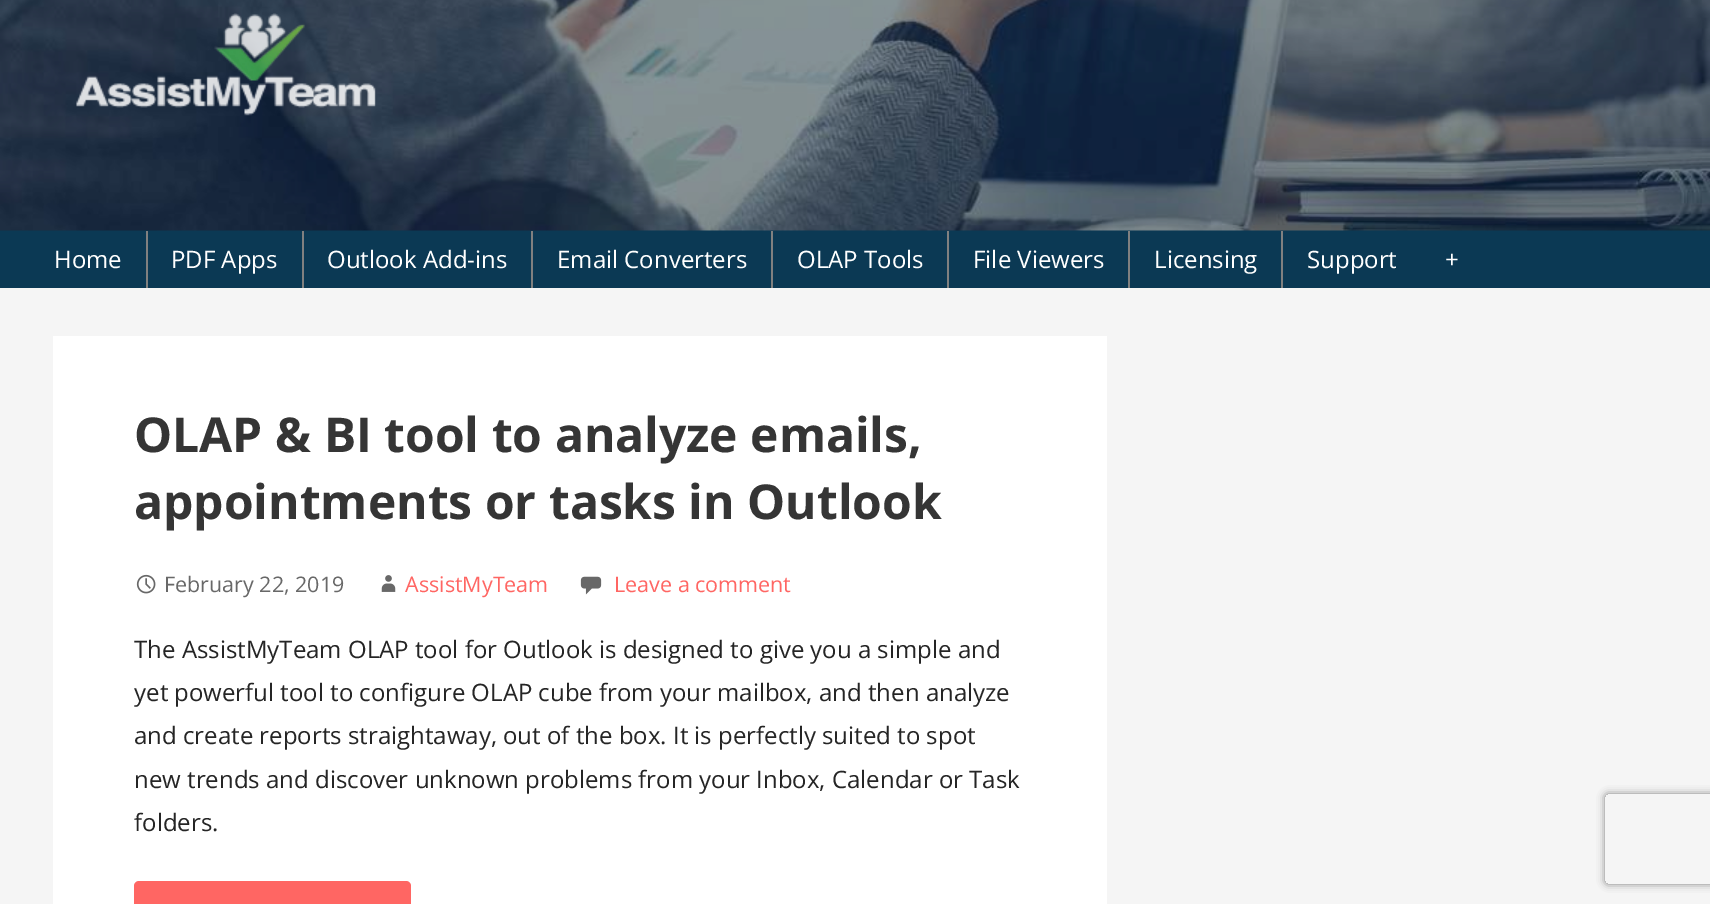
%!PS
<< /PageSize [1710 904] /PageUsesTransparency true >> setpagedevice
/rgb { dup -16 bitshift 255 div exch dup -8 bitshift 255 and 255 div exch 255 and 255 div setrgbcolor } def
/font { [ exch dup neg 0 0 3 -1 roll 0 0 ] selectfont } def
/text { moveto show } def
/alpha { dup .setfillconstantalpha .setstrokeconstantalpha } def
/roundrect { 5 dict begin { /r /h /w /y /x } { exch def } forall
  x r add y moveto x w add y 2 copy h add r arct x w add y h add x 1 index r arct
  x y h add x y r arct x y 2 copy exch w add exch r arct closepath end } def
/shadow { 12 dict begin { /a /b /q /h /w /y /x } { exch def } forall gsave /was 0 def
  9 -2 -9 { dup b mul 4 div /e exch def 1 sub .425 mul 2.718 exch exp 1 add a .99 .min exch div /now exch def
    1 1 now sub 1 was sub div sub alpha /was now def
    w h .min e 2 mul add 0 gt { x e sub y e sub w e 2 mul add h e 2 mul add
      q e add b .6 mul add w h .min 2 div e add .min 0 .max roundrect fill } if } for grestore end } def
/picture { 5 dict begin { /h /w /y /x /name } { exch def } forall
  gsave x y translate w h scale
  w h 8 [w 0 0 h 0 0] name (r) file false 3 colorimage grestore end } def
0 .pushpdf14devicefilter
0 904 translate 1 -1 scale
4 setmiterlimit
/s1 { /OpenSans-Regular 24 font 16#FFFFFF rgb } def
/s2 { /OpenSans-Bold 48 font 16#353535 rgb } def
/s3 { /OpenSans-Regular 21.5 font 16#686868 rgb } def
/s4 { /OpenSans-Regular 21.5 font 16#FF6663 rgb } def
/s5 { /OpenSans-Regular 24 font 16#252525 rgb } def
16#F5F5F5 rgb
0 0 1710 904 rectfill
16#0B3954 rgb
0 230 1710 58 rectfill
(pic1.raw) 0 0 1710 231 picture
(pic2.raw) 76 13 300 103 picture
16#808080 rgb
146 231 2 57 rectfill
s1
(Home) 54 268 text
16#808080 rgb
302 231 2 57 rectfill
s1
(PDF Apps) 171 268 text
16#808080 rgb
531 231 2 57 rectfill
s1
(Outlook Add-ins) 327 268 text
16#808080 rgb
771 231 2 57 rectfill
s1
(Email Converters) 557 268 text
16#808080 rgb
947 231 2 57 rectfill
s1
(OLAP Tools) 797 268 text
16#808080 rgb
1128 231 2 57 rectfill
s1
(File Viewers) 973 268 text
16#808080 rgb
1281 231 2 57 rectfill
s1
(Licensing) 1154 268 text
(Support) 1307 268 text
(+) 1445 268 text
53 336 1054 568 rectfill
s2
(OLAP & BI tool to analyze emails,) 134 452 text
(appointments or tasks in Outlook) 134 519 text
(pic3.raw) 136 574 20 20 picture
s3
(February 22, 2019) 164 592 text
(pic4.raw) 381 575 15 17 picture
s4
(AssistMyTeam) 405 592 text
(pic5.raw) 580 576 22 19 picture
(Leave a comment) 614 592 text
s5
(The AssistMyTeam OLAP tool for Outlook is designed to give you a simple and) 134 658 text
(yet powerful tool to configure OLAP cube from your mailbox, and then analyze) 134 701 text
(and create reports straightaway, out of the box. It is perfectly suited to spot) 134 744 text
(new trends and discover unknown problems from your Inbox, Calendar or Task) 134 788 text
(folders.) 134 831 text
16#FF6663 rgb
134 881 277 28 5 roundrect fill
gsave
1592 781 moveto 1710 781 lineto 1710 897 lineto 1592 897 lineto closepath 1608 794 moveto 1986 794 lineto 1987.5 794 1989 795.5 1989 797 curveto 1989 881 lineto 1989 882.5 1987.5 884 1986 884 curveto 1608 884 lineto 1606.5 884 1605 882.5 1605 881 curveto 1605 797 lineto 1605 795.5 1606.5 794 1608 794 curveto closepath eoclip newpath
16#808080 rgb
1605 794 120 90 3 4 1 shadow
grestore
.poppdf14devicefilter showpage
